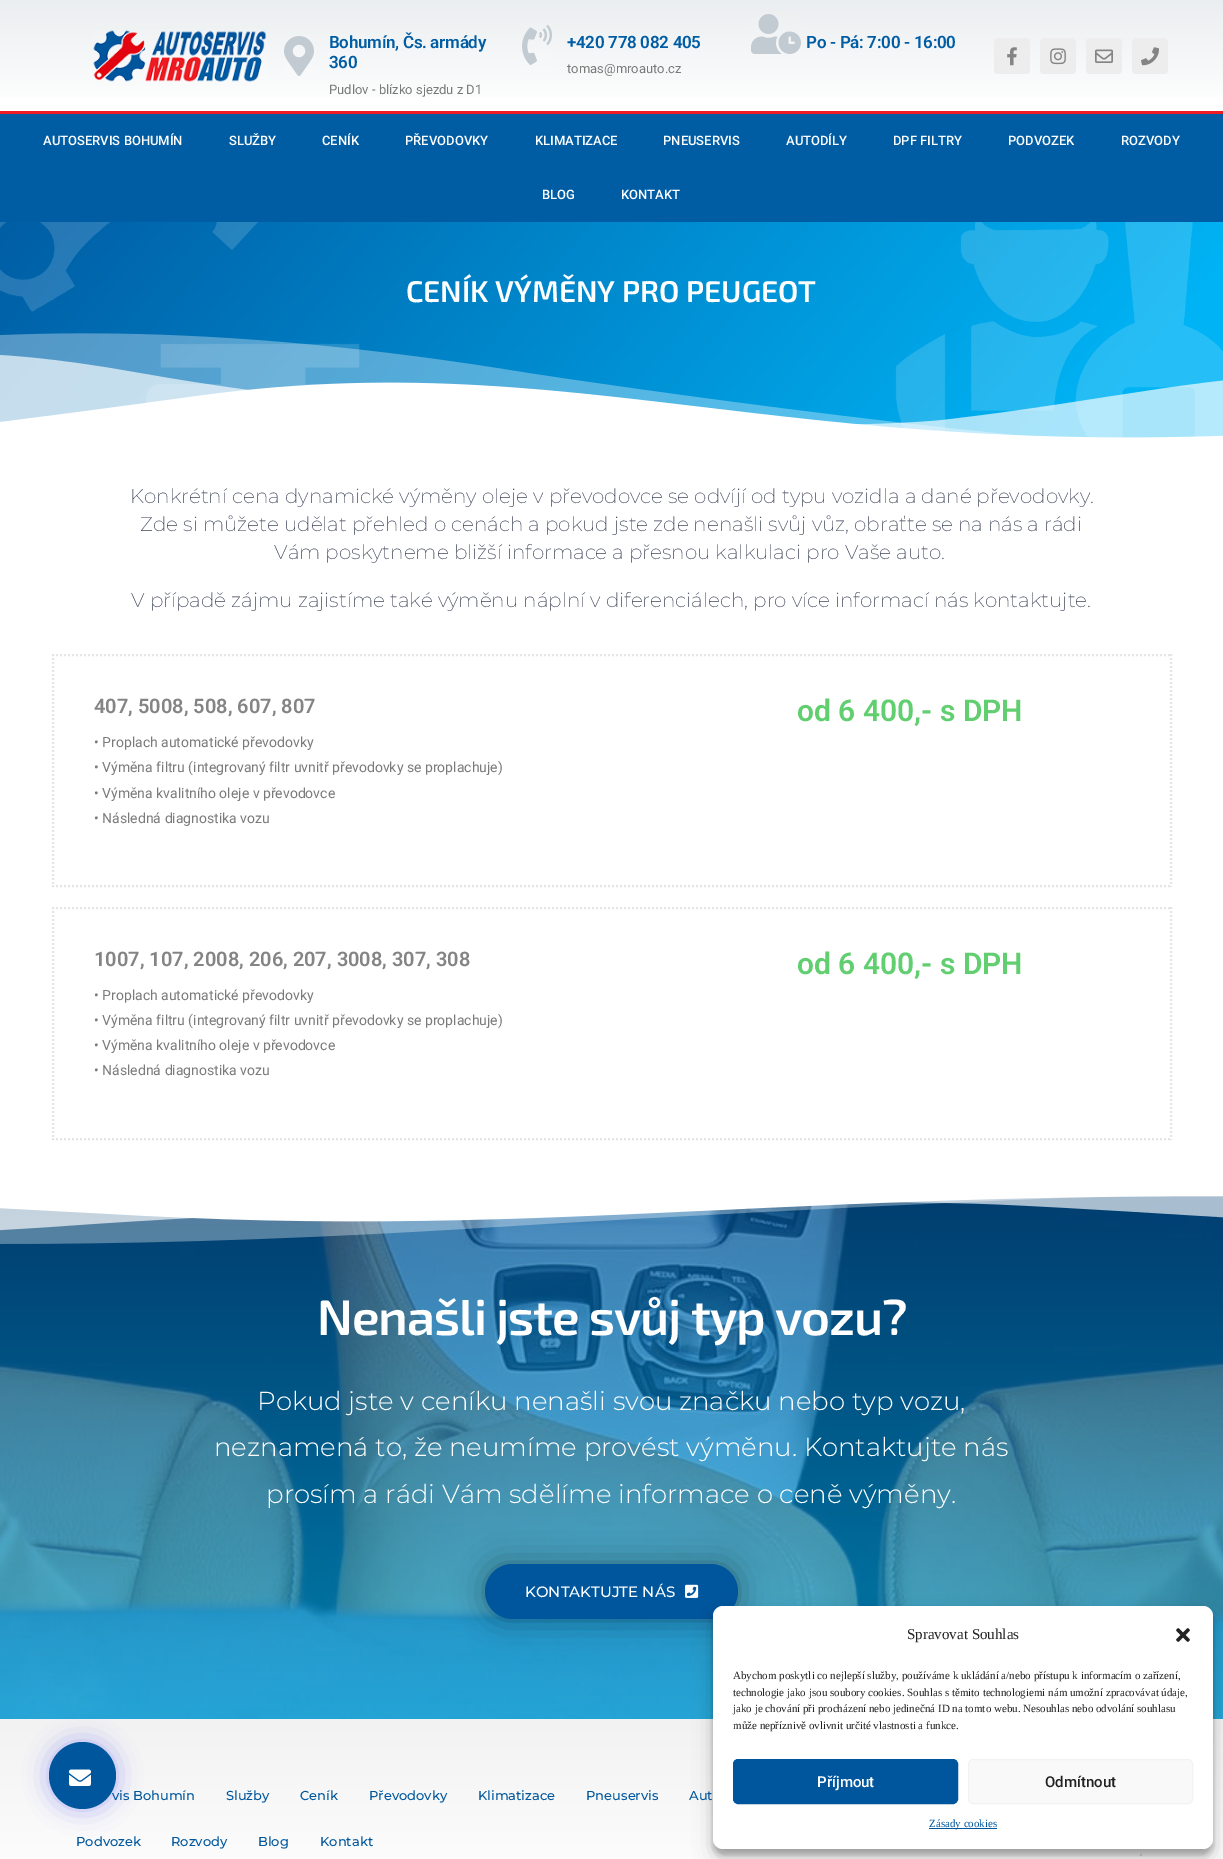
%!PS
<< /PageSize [1223 1859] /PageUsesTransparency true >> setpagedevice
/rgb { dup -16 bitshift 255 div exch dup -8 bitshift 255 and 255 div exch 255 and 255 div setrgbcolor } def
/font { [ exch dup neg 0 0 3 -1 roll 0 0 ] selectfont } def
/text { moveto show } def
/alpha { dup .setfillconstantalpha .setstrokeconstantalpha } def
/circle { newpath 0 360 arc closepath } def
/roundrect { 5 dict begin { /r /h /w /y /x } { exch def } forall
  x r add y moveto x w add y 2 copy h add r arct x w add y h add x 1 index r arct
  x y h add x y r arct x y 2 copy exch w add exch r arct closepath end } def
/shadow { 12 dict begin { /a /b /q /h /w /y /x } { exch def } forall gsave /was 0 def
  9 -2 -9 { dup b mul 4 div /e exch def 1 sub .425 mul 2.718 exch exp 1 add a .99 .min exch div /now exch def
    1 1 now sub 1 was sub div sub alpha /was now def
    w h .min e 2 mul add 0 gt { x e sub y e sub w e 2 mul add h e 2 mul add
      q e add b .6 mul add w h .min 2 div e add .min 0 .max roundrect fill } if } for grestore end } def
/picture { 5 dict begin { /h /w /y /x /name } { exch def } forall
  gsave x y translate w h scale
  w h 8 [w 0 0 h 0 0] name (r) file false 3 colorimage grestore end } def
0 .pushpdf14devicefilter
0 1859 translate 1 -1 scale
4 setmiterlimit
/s1 { /Roboto-Regular 13 font 16#7A7A7A rgb } def
/s2 { /Roboto-Medium 13 font 16#FFFFFF rgb } def
/s3 { /Exo2-SemiBold 30 font 16#FFFFFF rgb } def
/s4 { /Montserrat-Medium 13 font 16#00579D rgb } def
/s5 { /Montserrat-ExtraLight 20 font 16#3D4459 rgb } def
/s6 { /Roboto-SemiBold 20 font 16#848484 rgb } def
/s7 { /Roboto-Regular 14 font 16#7A7A7A rgb } def
/s8 { /Roboto-SemiBold 30 font 16#61CE70 rgb } def
/s9 { /Montserrat-Light 26 font 16#FFFFFF rgb } def
/s10 { /Montserrat-Medium 15 font 16#FFFFFF rgb } def
/s11 { /LiberationSerif-Regular 15 font 16#222222 rgb } def
/s12 { /LiberationSerif-Regular 11 font 16#222222 rgb } def
/s13 { /Roboto-Medium 15 font 16#FFFFFF rgb } def
/s14 { /Roboto-Medium 15 font 16#222222 rgb } def
/s15 { /LiberationSerif-Regular 11 font 16#00579D rgb } def
/s16 { /Montserrat-Medium 18 font 16#A8A8A8 rgb } def
16#FFFFFF rgb
0 0 1223 1859 rectfill
gsave 0 0 moveto 1223 0 lineto 1223 97 lineto 0 97 lineto closepath clip newpath
<< /ShadingType 2 /ColorSpace /DeviceRGB /Coords [612 0 612 111] /Extend [true true] /Function << /FunctionType 2 /Domain [0 1] /C0 [0.922 0.933 0.941] /C1 [1 1 1] /N 1 >> >> shfill grestore
(pic1.raw) 93 30 174 52 picture
(pic2.raw) 284 36 30 40 picture
/Roboto-SemiBold 17 font
16#005DA4 rgb
329 48 moveto -0.3 0 (Bohumín, Čs. armády) ashow
329 68 moveto -0.3 0 (360) ashow
s1
(Pudlov - blízko sjezdu z D1) 329 94 text
(pic3.raw) 522 25 30 40 picture
/Roboto-SemiBold 17 font
16#005DA4 rgb
567 48 moveto -0.3 0 (+420 778 082 405) ashow
s1
(tomas@mroauto.cz) 567 73 text
(pic4.raw) 751 14 50 40 picture
/Roboto-SemiBold 17 font
16#005DA4 rgb
806 48 moveto -0.3 0 (Po - Pá: 7:00 - 16:00) ashow
16#EDEDED rgb
994 38 36 36 4 roundrect fill
(pic5.raw) 1007 47 10 19 picture
1040 38 36 36 4 roundrect fill
(pic6.raw) 1050 48 16 17 picture
1086 38 36 36 4 roundrect fill
(pic7.raw) 1095 49 18 14 picture
1132 38 36 36 4 roundrect fill
(pic8.raw) 1141 47 18 19 picture
16#005DA4 rgb
0 114 1223 108 rectfill
16#ED1C24 rgb
0 111 1223 3 rectfill
s2
(AUTOSERVIS BOHUMÍN) 43 145 text
(SLUŽBY) 229 145 text
(CENÍK) 322 145 text
(PŘEVODOVKY) 405 145 text
(KLIMATIZACE) 535 145 text
(PNEUSERVIS) 663 145 text
(AUTODÍLY) 786 145 text
(DPF FILTRY) 893 145 text
(PODVOZEK) 1008 145 text
(ROZVODY) 1121 145 text
(BLOG) 542 199 text
(KONTAKT) 621 199 text
gsave 0 222 moveto 1223 222 lineto 1223 438 lineto 0 438 lineto closepath clip newpath
<< /ShadingType 2 /ColorSpace /DeviceRGB /Coords [196 -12 1027 686] /Extend [true true] /Function << /FunctionType 3 /Domain [0 1] /Functions [<< /FunctionType 2 /Domain [0 1] /C0 [0 0.365 0.643] /C1 [0 0.702 0.957] /N 1 >> << /FunctionType 2 /Domain [0 1] /C0 [0 0.702 0.957] /C1 [0 0.702 0.957] /N 1 >>] /Bounds [0.89] /Encode [0 1 0 1] >> >> shfill grestore
(pic9.raw) 0 222 1223 216 picture
s3
(CENÍK VÝMĚNY PRO PEUGEOT) 406 302 text
(pic12.raw) 0 1196 1223 523 picture
gsave 0 1719 moveto 1223 1719 lineto 1223 1859 lineto 0 1859 lineto closepath clip newpath
<< /ShadingType 2 /ColorSpace /DeviceRGB /Coords [612 1719 612 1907] /Extend [true true] /Function << /FunctionType 2 /Domain [0 1] /C0 [0.949 0.949 0.949] /C1 [1 1 1] /N 1 >> >> shfill grestore
16#3538F0 rgb
49 1742 67 67 33.5 12.5 0.35 shadow
s4
(vis Bohumín) 112 1800 text
16#00569D rgb
82.5 1775.5 33.5 circle fill
(pic10.raw) 69 1769 22 17 picture
(pic11.raw) 0 333 1223 119 picture
s5
(Konkrétní cena dynamické výměny oleje v převodovce se odvíjí od typu vozidla a dané převodovky.) 130 503 text
(Zde si můžete udělat přehled o cenách a pokud jste zde nenašli svůj vůz, obraťte se na nás a rádi) 140 531 text
(Vám poskytneme bližší informace a přesnou kalkulaci pro Vaše auto.) 274 559 text
(V případě zájmu zajistíme také výměnu náplní v diferenciálech, pro více informací nás kontaktujte.) 131 607 text
16#E5E5E5 rgb
2 setlinewidth
[2 2] 0 setdash
52 655 moveto 1172 655 lineto stroke
1171 654 moveto 1171 887 lineto stroke
52 886 moveto 1172 886 lineto stroke
53 654 moveto 53 887 lineto stroke
s6
(407, 5008, 508, 607, 807) 94 713 text
s7
(• Proplach automatické převodovky) 94 747 text
(• Výměna filtru \(integrovaný filtr uvnitř převodovky se proplachuje\)) 94 772 text
(• Výměna kvalitního oleje v převodovce) 94 798 text
(• Následná diagnostika vozu) 94 823 text
s8
(od 6 400,- s DPH) 797 721 text
16#E5E5E5 rgb
52 908 moveto 1172 908 lineto stroke
1171 907 moveto 1171 1140 lineto stroke
52 1139 moveto 1172 1139 lineto stroke
53 907 moveto 53 1140 lineto stroke
s6
(1007, 107, 2008, 206, 207, 3008, 307, 308) 94 966 text
s7
(• Proplach automatické převodovky) 94 1000 text
(• Výměna filtru \(integrovaný filtr uvnitř převodovky se proplachuje\)) 94 1025 text
(• Výměna kvalitního oleje v převodovce) 94 1050 text
(• Následná diagnostika vozu) 94 1075 text
s8
(od 6 400,- s DPH) 797 974 text
(pic13.raw) 0 1190 1223 54 picture
/Exo2-SemiBold 50 font
16#FFFFFF rgb
317 1335 moveto -1 0 (Nenašli jste svůj typ vozu?) ashow
s9
(Pokud jste v ceníku nenašli svou značku nebo typ vozu,) 257 1410 text
(neznamená to, že neumíme provést výměnu. Kontaktujte nás) 214 1456 text
(prosím a rádi Vám sdělíme informace o ceně výměny.) 266 1503 text
16#000000 rgb
485 1564 253 55 27.5 15 0.36 shadow
16#00569D rgb
485 1564 253 55 27.5 roundrect fill
s10
(KONTAKTUJTE NÁS) 525 1597 text
(pic14.raw) 685 1584 14 14 picture
16#000000 rgb
713 1612 500 243 10 3 0.23 shadow
713 1616 500 243 10 10 0.19 shadow
16#FFFFFF rgb
713 1606 500 243 10 roundrect fill
s11
(Spravovat Souhlas) 907 1639 text
(pic15.raw) 1176 1628 14 14 picture
s12
(Abychom poskytli co nejlepší služby, používáme k ukládání a/nebo přístupu k informacím o zařízení,) 733 1679 text
(technologie jako jsou soubory cookies. Souhlas s těmito technologiemi nám umožní zpracovávat údaje,) 733 1696 text
(jako je chování při procházení nebo jedinečná ID na tomto webu. Nesouhlas nebo odvolání souhlasu) 733 1712 text
(může nepříznivě ovlivnit určité vlastnosti a funkce.) 733 1729 text
16#00569D rgb
733.5 1759.5 224 44 4.5 roundrect gsave fill grestore
1 setlinewidth
[] 0 setdash
stroke
s13
(Příjmout) 817 1787 text
16#F9F9F9 rgb
968.5 1759.5 224 44 4.5 roundrect gsave fill grestore
16#F2F2F2 rgb
stroke
s14
(Odmítnout) 1045 1787 text
16#00569D rgb
929 1828 68 1 rectfill
s15
(Zásady cookies) 929 1827 text
s4
(Služby) 226 1800 text
(Ceník) 300 1800 text
(Převodovky) 369 1800 text
(Klimatizace) 478 1800 text
(Pneuservis) 586 1800 text
(Aut) 689 1800 text
(Podvozek) 76 1846 text
(Rozvody) 171 1846 text
(Blog) 258 1846 text
(Kontakt) 320 1846 text
s16
(-) 928 1856 text
(.) 1139 1856 text
.poppdf14devicefilter showpage
